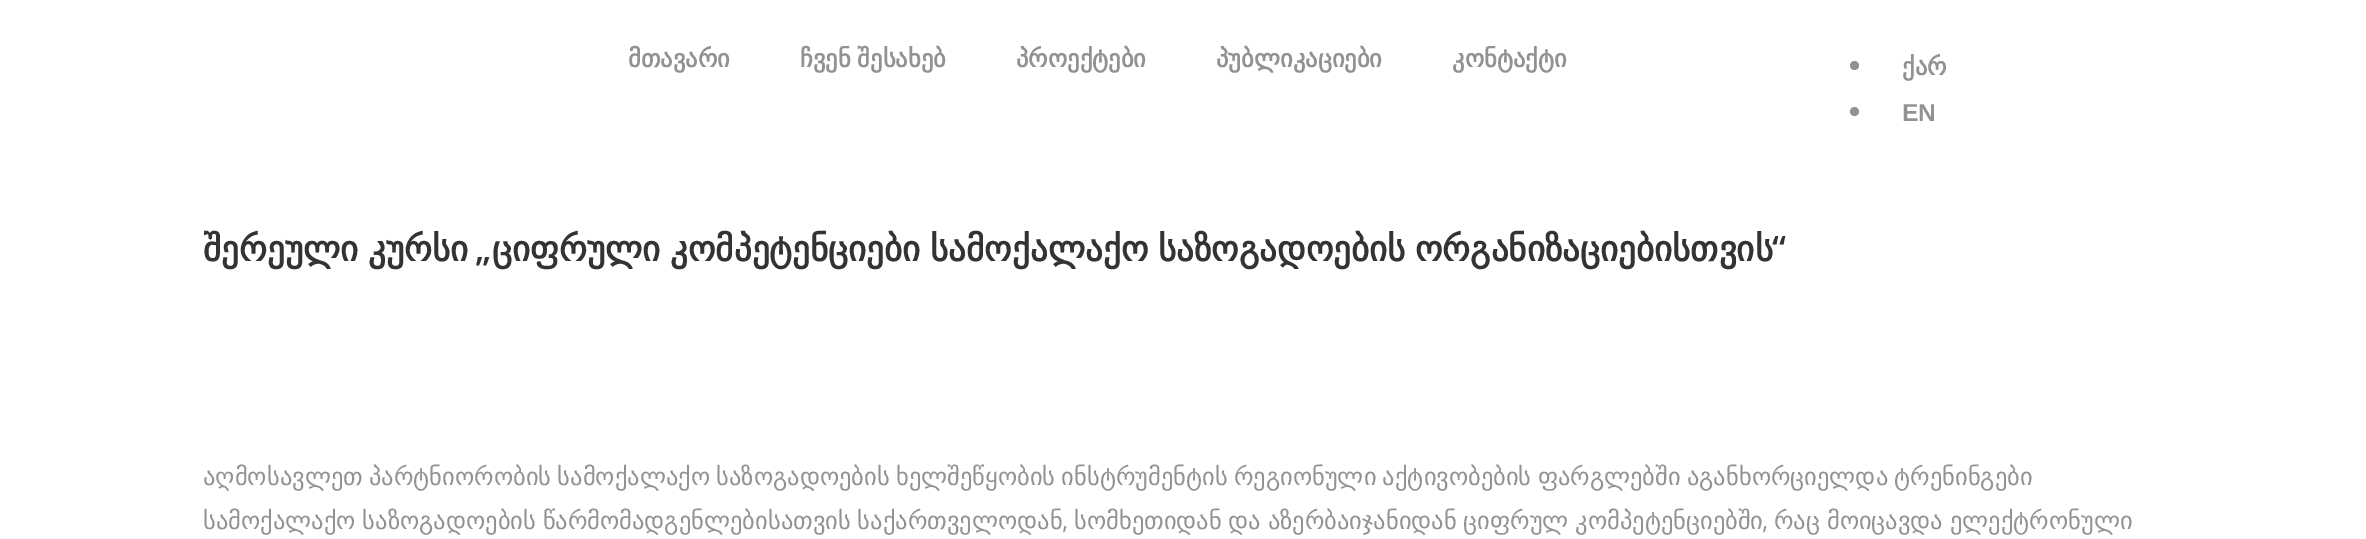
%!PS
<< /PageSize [2366 539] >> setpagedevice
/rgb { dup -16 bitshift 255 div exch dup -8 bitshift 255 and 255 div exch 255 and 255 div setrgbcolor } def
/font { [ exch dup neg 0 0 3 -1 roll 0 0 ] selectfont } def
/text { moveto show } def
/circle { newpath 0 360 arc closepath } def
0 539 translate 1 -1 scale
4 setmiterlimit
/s1 { /DejaVuSans-Bold 24.5 font 16#929292 rgb } def
/s2 { /LiberationSans-Bold 24.5 font 16#929292 rgb } def
/s3 { /OpenSans-SemiBold 35 font 16#333333 rgb } def
/s4 { /OpenSans-Regular 24.5 font 16#929292 rgb } def
16#FFFFFF rgb
0 0 2366 539 rectfill
s1
(მთავარი) 628 67 text
800 67 moveto -1 0 32 (ჩვენ შესახებ) widthshow
(პროექტები) 1016 67 text
(პუბლიკაციები) 1216 67 text
(კონტაქტი) 1452 67 text
1854.5 65.5 4.5 circle fill
(ქარ) 1902 75 text
1854.5 111.5 4.5 circle fill
s2
(EN) 1902 121 text
/DejaVuSans-Bold 35 font
16#333333 rgb
203 261 moveto -1.5 0 32 (შერეული კურსი) widthshow
492 261 moveto -1.5 0 32 (ციფრული კომპეტენციები სამოქალაქო საზოგადოების ორგანიზაციებისთვის) widthshow
s3
(“) 1772 261 text
(„) 475 261 text
/DejaVuSans-Regular 24.5 font
16#929292 rgb
203 485 moveto -1.5 0 32 (აღმოსავლეთ პარტნიორობის სამოქალაქო საზოგადოების ხელშეწყობის ინსტრუმენტის რეგიონული აქტივობების ფარგლებში აგანხორციელდა ტრენინგები) widthshow
203 529 moveto -1 0 32 (სამოქალაქო საზოგადოების წარმომადგენლებისათვის საქართველოდან) widthshow
s4
(,) 1062 529 text
/DejaVuSans-Regular 24.5 font
1074 529 moveto -1 0 32 (სომხეთიდან და აზერბაიჯანიდან ციფრულ კომპეტენციებში) widthshow
s4
(,) 1762 529 text
/DejaVuSans-Regular 24.5 font
1774 529 moveto -1 0 32 (რაც მოიცავდა ელექტრონული) widthshow
showpage
